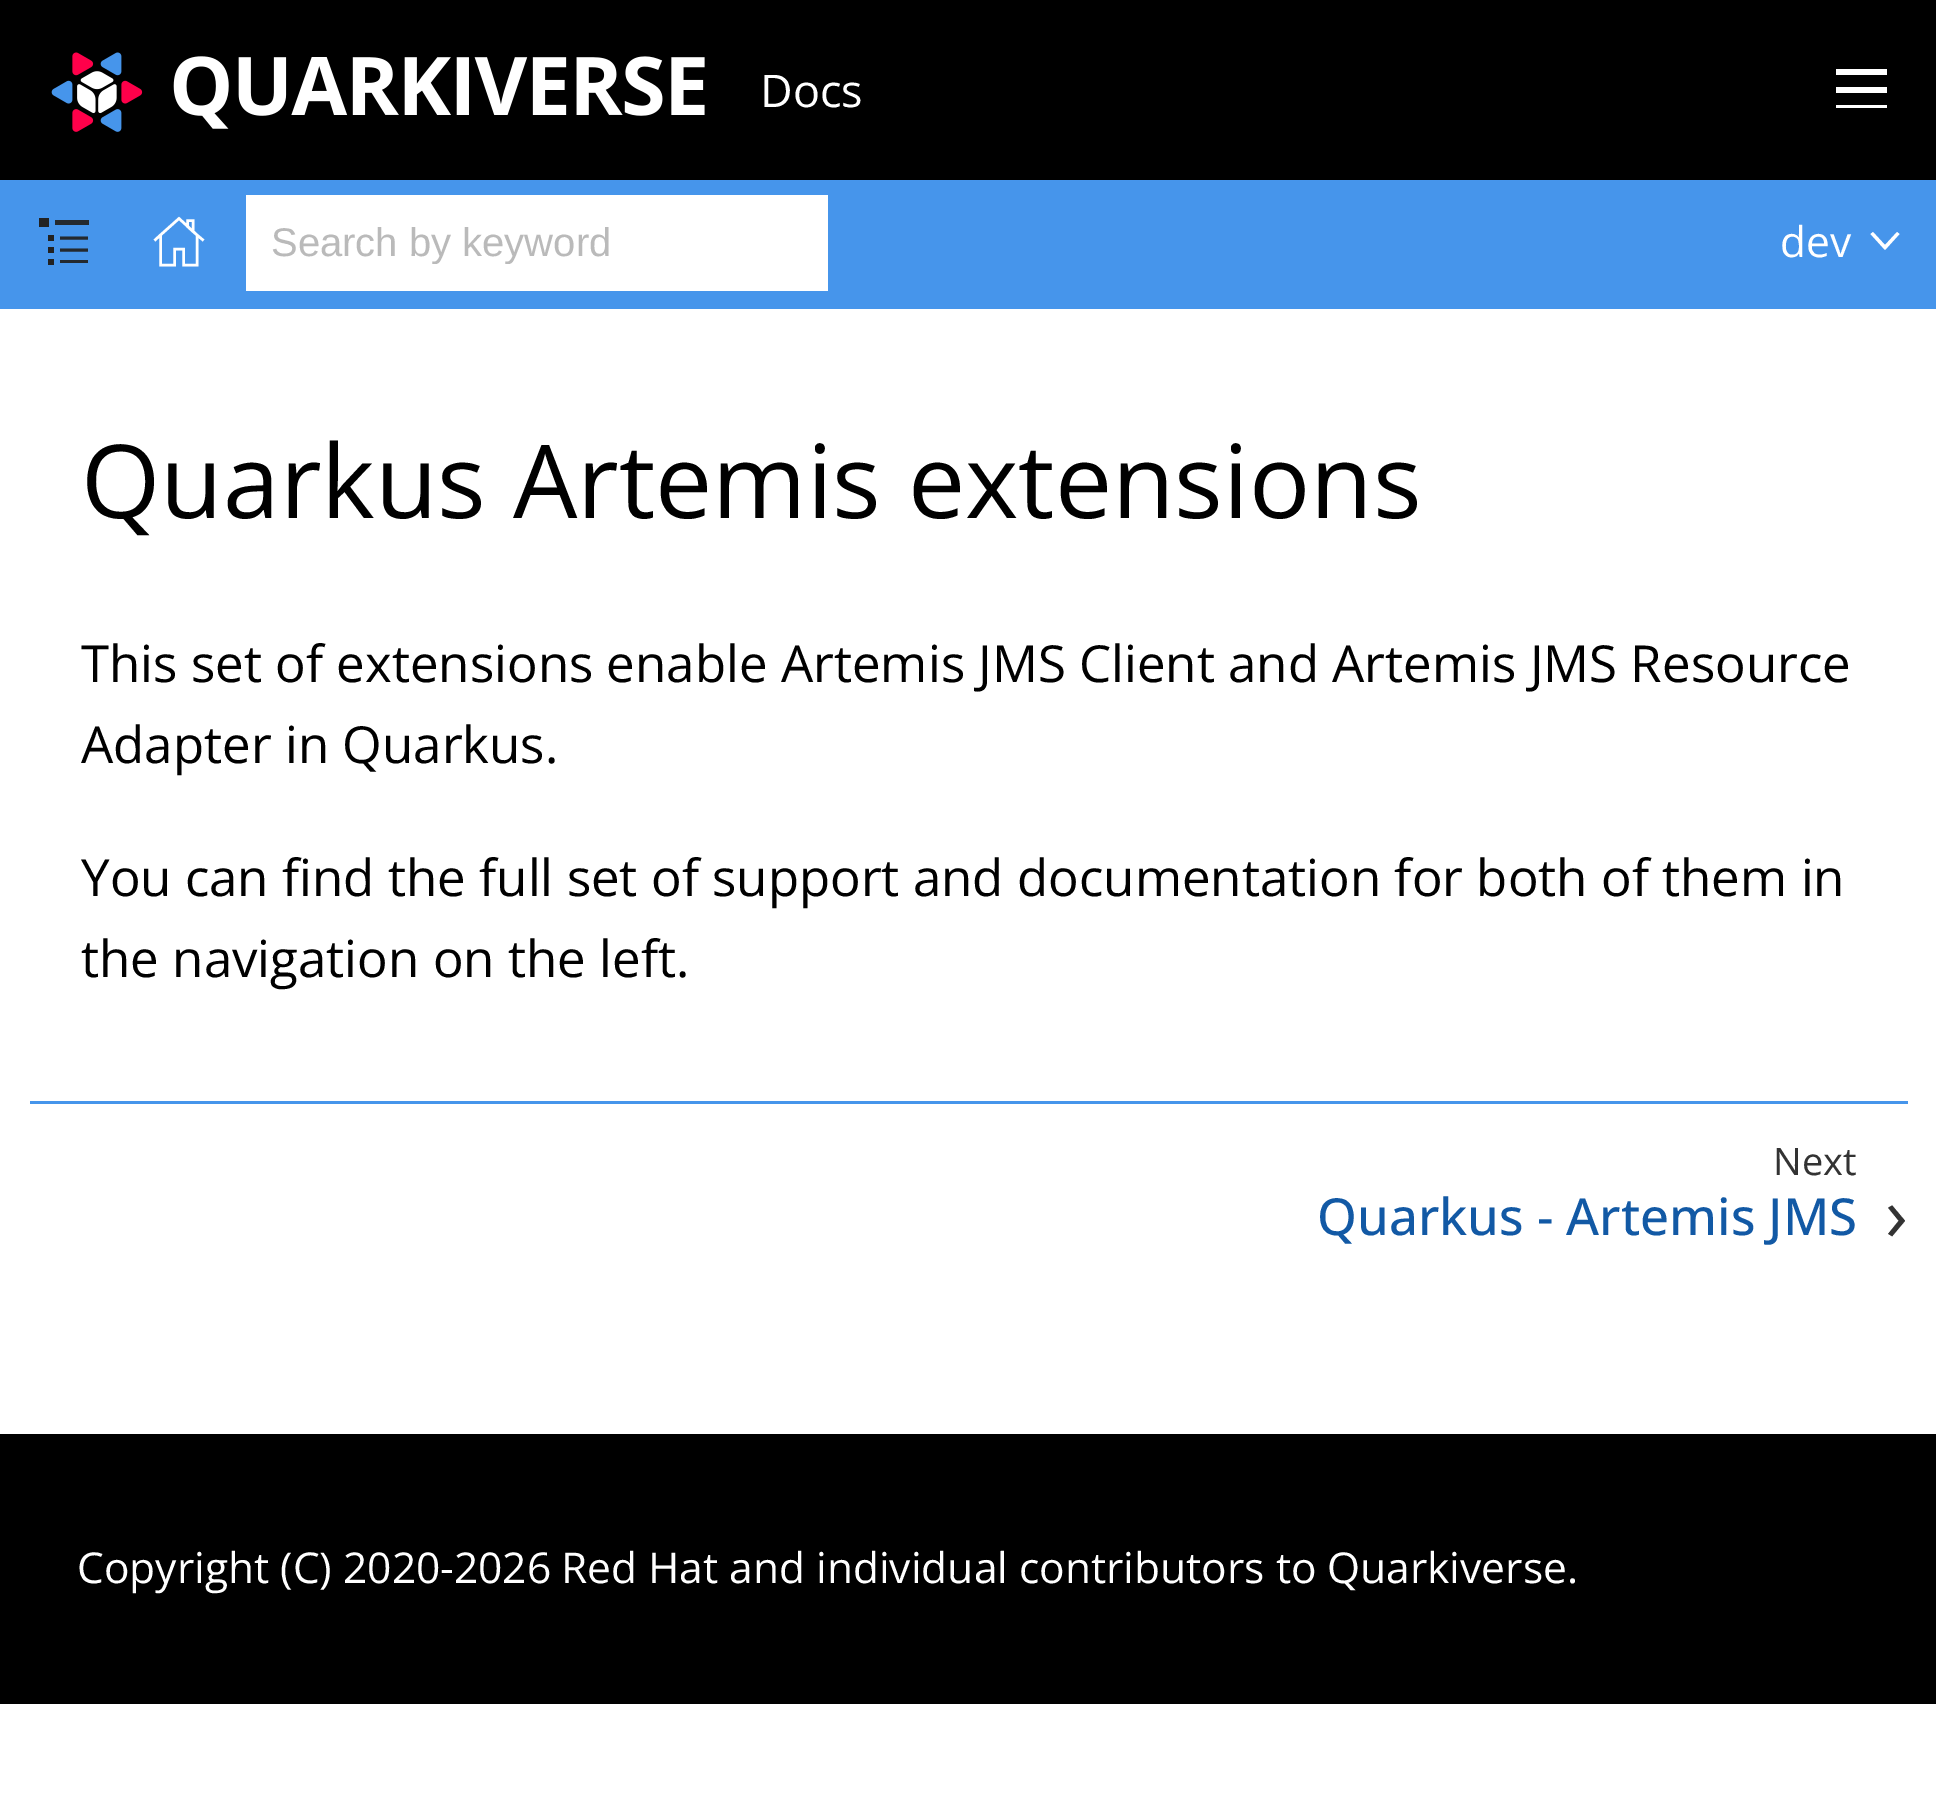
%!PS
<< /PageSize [1936 1800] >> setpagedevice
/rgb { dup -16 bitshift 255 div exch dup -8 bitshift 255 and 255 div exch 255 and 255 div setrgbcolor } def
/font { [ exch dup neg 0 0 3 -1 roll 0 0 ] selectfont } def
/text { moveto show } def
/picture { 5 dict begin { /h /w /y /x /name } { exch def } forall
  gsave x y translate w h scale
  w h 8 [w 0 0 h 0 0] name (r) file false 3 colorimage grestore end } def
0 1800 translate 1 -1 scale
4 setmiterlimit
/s1 { /OpenSans-Regular 45 font 16#FFFFFF rgb } def
/s2 { /LiberationSans-Regular 40 font 16#BABABA rgb } def
/s3 { /OpenSans-Regular 42.5 font 16#FFFFFF rgb } def
/s4 { /OpenSans-Regular 102 font 16#000000 rgb } def
/s5 { /OpenSans-Regular 51 font 16#000000 rgb } def
/s6 { /OpenSans-Regular 38 font 16#333333 rgb } def
/s7 { /OpenSans-Medium 51 font 16#1259A5 rgb } def
/s8 { /OpenSans-Regular 76 font 16#333333 rgb } def
16#FFFFFF rgb
0 0 1936 1800 rectfill
16#000000 rgb
0 0 1936 180 rectfill
(pic1.raw) 51 52 654 80 picture
s1
(Docs) 760 107 text
1836 69 51 6 rectfill
1836 87 51 6 rectfill
1836 105 51 3 rectfill
16#4695EB rgb
0 180 1936 129 rectfill
16#24292E rgb
55 220 34 5 rectfill
16#222222 rgb
39 218 10 9 rectfill
16#24292E rgb
3.1 setlinewidth
60 250 moveto 88 250 lineto stroke
16#222222 rgb
48 247 6 6 rectfill
16#24292E rgb
60 260 28 3 rectfill
16#222222 rgb
48 259 6 6 rectfill
16#24292E rgb
60 238 moveto 88 238 lineto stroke
16#222222 rgb
48 235 6 6 rectfill
16#FFFFFF rgb
2.5 setlinewidth
179 218.5 moveto 160.5 235 lineto 160.5 265 lineto 174.5 265 lineto 174.5 249 lineto 183.5 249 lineto 183.5 265 lineto 197 265 lineto 197 235 lineto closepath 187.5 226.5 moveto 187.5 220.5 lineto 193 220.5 lineto 193 231.5 lineto closepath 160.5 235 moveto 154.5 240.5 lineto 203.5 240.5 moveto 197 235 lineto stroke
246 195 582 96 rectfill
gsave
270 219 492 45 rectclip
s2
(Search by keyword) 271 256 text
grestore
1873 232 moveto 1870.5 234 lineto 1885 250 lineto 1899.5 234 lineto 1897 232 lineto 1885 245 lineto closepath fill
s3
(dev) 1780 257 text
s4
(Quarkus Artemis extensions) 81 518 text
s5
(This set of extensions enable Artemis JMS Client and Artemis JMS Resource) 81 682 text
(Adapter in Quarkus.) 81 763 text
(You can find the full set of support and documentation for both of them in) 81 896 text
(the navigation on the left.) 81 977 text
16#4695EB rgb
30 1101 1878 3 rectfill
s6
(Next) 1773 1175 text
s7
(Quarkus - Artemis JMS) 1317 1235 text
s8
(›) 1885 1241 text
16#000000 rgb
0 1434 1936 270 rectfill
s3
(Copyright \(C\) 2020-2026) 77 1583 text
(Red Hat and individual contributors to) 561 1583 text
(Quarkiverse.) 1327 1583 text
showpage
